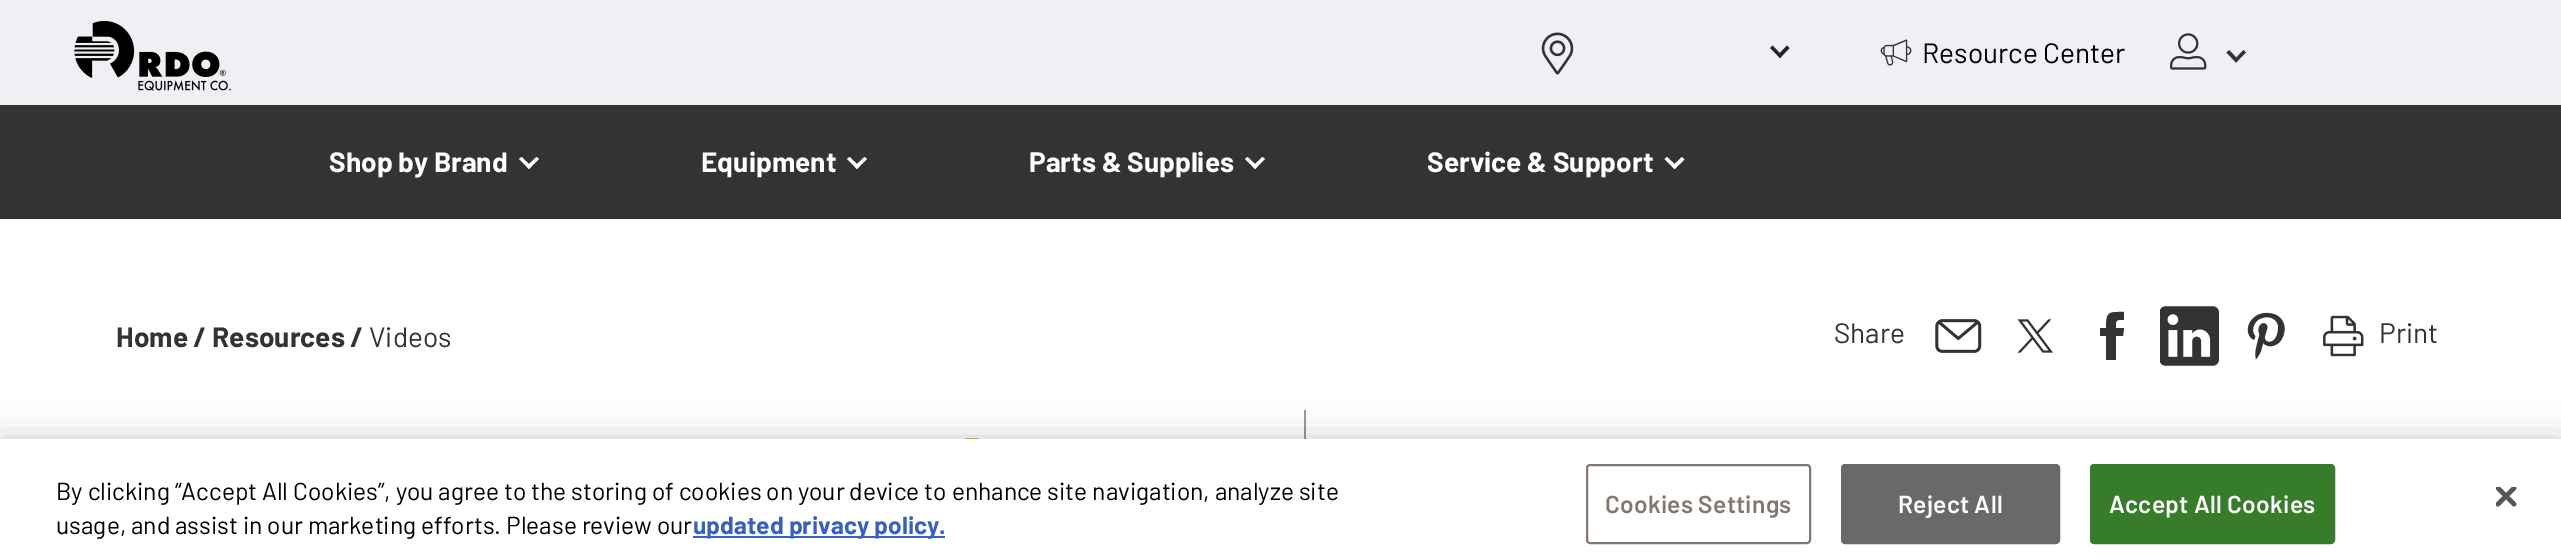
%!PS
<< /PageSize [2561 560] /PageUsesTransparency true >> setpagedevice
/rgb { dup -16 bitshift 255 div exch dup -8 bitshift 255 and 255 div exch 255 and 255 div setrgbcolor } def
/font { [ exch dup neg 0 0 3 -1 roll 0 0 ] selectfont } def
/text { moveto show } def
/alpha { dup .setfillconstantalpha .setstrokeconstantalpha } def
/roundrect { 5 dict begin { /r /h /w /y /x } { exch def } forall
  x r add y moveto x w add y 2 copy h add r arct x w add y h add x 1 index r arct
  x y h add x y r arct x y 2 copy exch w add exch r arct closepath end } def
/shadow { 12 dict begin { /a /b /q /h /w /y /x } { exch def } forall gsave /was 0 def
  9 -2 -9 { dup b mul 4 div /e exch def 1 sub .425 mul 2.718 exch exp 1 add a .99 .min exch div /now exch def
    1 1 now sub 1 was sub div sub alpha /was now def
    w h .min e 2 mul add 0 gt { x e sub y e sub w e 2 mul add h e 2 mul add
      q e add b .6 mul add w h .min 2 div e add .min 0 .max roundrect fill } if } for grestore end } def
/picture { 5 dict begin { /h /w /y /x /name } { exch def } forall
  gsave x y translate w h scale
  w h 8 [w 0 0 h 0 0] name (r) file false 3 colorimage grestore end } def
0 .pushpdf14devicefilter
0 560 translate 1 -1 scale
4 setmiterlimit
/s1 { /Barlow-Regular 28 font 16#000000 rgb } def
/s2 { /Barlow-Bold 28 font 16#FFFFFF rgb } def
/s3 { /Barlow-Bold 28 font 16#333333 rgb } def
/s4 { /Barlow-Regular 28 font 16#333333 rgb } def
/s5 { /Barlow-Regular 24.5 font 16#000000 rgb } def
/s6 { /Barlow-Bold 24.5 font 16#3860BE rgb } def
16#FFFFFF rgb
0 0 2561 560 rectfill
16#EFEFF4 rgb
0 0 2561 105 rectfill
(pic1.raw) 74 20 157 71 picture
(pic2.raw) 1541 32 33 43 picture
16#212529 rgb
1787 45.5 moveto 1789.5 48 lineto 1780 58 lineto 1777.5 55.5 lineto closepath fill
1772.5 45.5 moveto 1782 55.5 lineto 1780 58 lineto 1770 48 lineto closepath fill
(pic3.raw) 1880 39 32 27 picture
s1
(Resource Center) 1922 63 text
(pic4.raw) 2170 33 37 37 picture
16#333333 rgb
2243.5 50 moveto 2246 52.5 lineto 2236 62.5 lineto 2234 60 lineto closepath fill
2229 50 moveto 2238.5 60 lineto 2236 62.5 lineto 2226.5 52.5 lineto closepath fill
0 105 2561 114 rectfill
s2
(Shop by Brand) 329 172 text
536.5 157 moveto 539 159 lineto 529 169 lineto 526.5 166.5 lineto closepath fill
521.5 157 moveto 531.5 166.5 lineto 529 169 lineto 519 159 lineto closepath fill
(Equipment) 701 172 text
864.5 157 moveto 867 159 lineto 857 169 lineto 854.5 166.5 lineto closepath fill
849.5 157 moveto 859.5 166.5 lineto 857 169 lineto 847 159 lineto closepath fill
(Parts & Supplies) 1029 172 text
1262.5 157 moveto 1265 159 lineto 1255 169 lineto 1252.5 166.5 lineto closepath fill
1247.5 157 moveto 1257.5 166.5 lineto 1255 169 lineto 1245 159 lineto closepath fill
(Service & Support) 1427 172 text
1682 157 moveto 1684.5 159.5 lineto 1674.5 169 lineto 1672 166.5 lineto closepath fill
1667 157 moveto 1677 166.5 lineto 1674.5 169 lineto 1664.5 159 lineto closepath fill
s3
(Home / Resources /) 116 347 text
s4
(Videos) 369 347 text
(Share) 1834 343 text
(pic5.raw) 1935 319 47 34 picture
(pic6.raw) 2017 319 36 34 picture
2116 323 moveto 2116 319 2121 320 2124 320 curveto 2124 312 lineto 2109 312 2106 311 2106 328 curveto 2100 328 lineto 2100 336 lineto 2106 336 lineto 2106 360 lineto 2116 360 lineto 2116 336 lineto 2123 336 lineto 2124 328 lineto 2116 328 lineto closepath fill
(pic7.raw) 2160 306 59 60 picture
(pic8.raw) 2247 312 38 48 picture
(pic9.raw) 2323 315 41 42 picture
(Print) 2379 343 text
(pic10.raw) 965 438 14 1 picture
16#999999 rgb
1304 410 2 29 rectfill
16#000000 rgb
0 439 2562 121 0 16 0.2 shadow
16#FFFFFF rgb
0 439 2561 121 rectfill
s5
(By clicking “Accept All Cookies”, you agree to the storing of cookies on your device to enhance site navigation, analyze site) 56 500 text
(usage, and assist in our marketing efforts. Please review our) 56 534 text
16#3860BE rgb
693 536 252 2 rectfill
s6
(updated privacy policy.) 693 534 text
16#83786F rgb
2 setlinewidth
1587 465 223 78 3 roundrect stroke
/Barlow-SemiBold 24.5 font
1605 513 moveto 0.25 0 (Cookies Settings) ashow
16#696969 rgb
1842 465 217 78 3 roundrect gsave fill grestore
stroke
16#FFFFFF rgb
1898 513 moveto 0.25 0 (Reject All) ashow
16#367C2B rgb
2091 465 243 78 3 roundrect gsave fill grestore
stroke
16#FFFFFF rgb
2109 513 moveto 0.25 0 (Accept All Cookies) ashow
(pic11.raw) 2496 487 21 20 picture
.poppdf14devicefilter showpage
